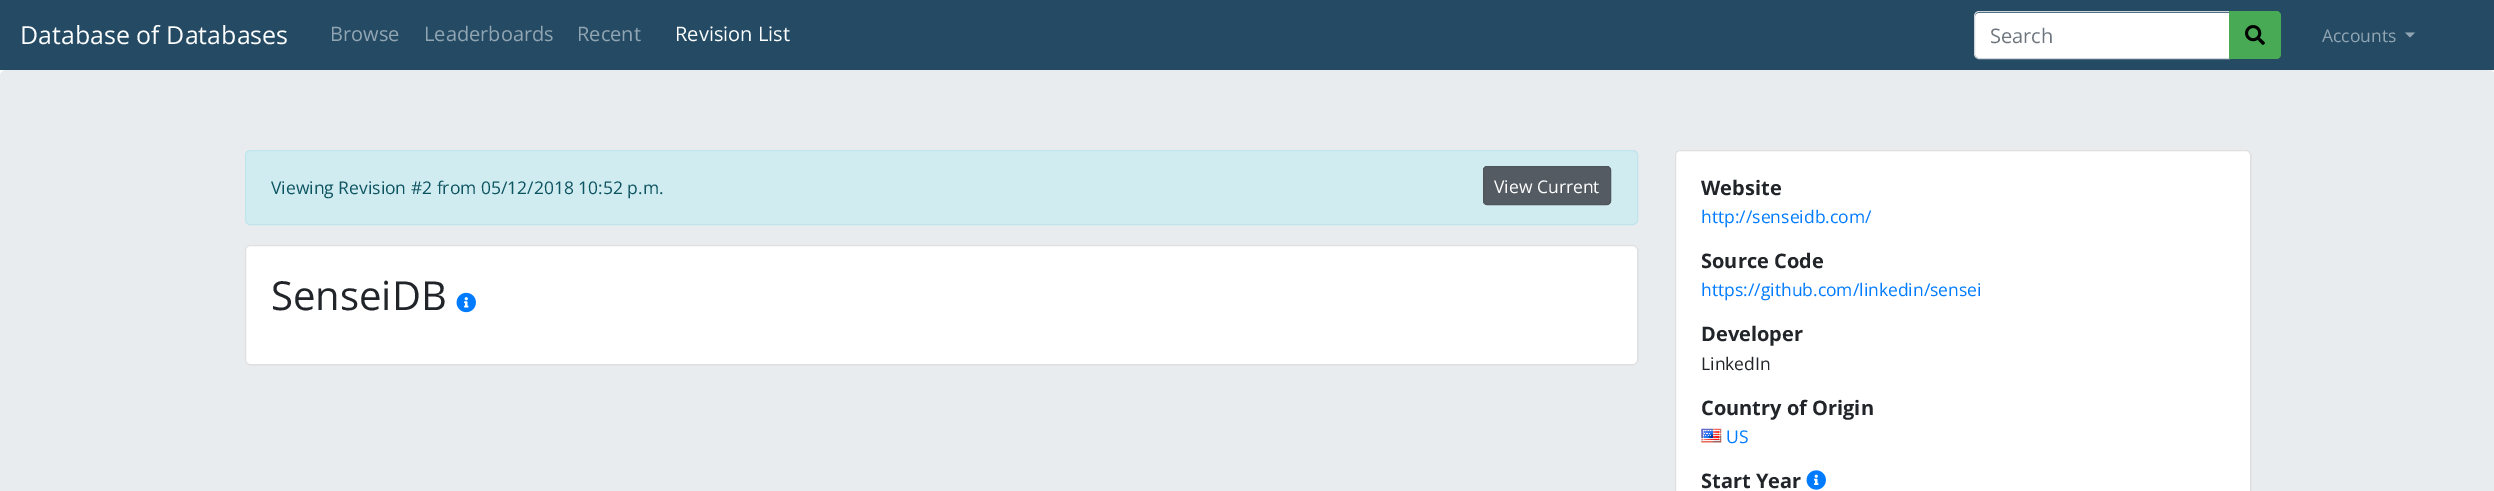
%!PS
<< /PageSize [2494 491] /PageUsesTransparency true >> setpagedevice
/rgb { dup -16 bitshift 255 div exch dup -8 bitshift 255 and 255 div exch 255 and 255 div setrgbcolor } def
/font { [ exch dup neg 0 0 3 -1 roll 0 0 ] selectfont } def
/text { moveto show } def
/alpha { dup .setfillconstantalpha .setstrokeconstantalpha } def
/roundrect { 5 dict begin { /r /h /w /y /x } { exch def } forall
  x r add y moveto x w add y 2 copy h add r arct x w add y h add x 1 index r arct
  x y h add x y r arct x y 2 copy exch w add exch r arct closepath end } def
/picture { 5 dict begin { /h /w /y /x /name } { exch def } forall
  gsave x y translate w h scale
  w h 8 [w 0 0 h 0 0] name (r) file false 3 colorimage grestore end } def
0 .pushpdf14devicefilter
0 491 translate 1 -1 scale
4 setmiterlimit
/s1 { /OpenSans-Regular 25 font 16#FFFFFF rgb } def
/s2 { /OpenSans-Regular 20 font 16#92A5B2 rgb } def
/s3 { /OpenSans-Regular 20 font 16#FFFFFF rgb } def
/s4 { /OpenSans-Regular 20 font 16#6C757D rgb } def
/s5 { /OpenSans-Regular 17.5 font 16#92A5B2 rgb } def
/s6 { /OpenSans-Regular 17.5 font 16#0C5460 rgb } def
/s7 { /OpenSans-Regular 17.5 font 16#FFFFFF rgb } def
/s8 { /OpenSans-Regular 40 font 16#212529 rgb } def
/s9 { /OpenSans-Bold 20 font 16#212529 rgb } def
/s10 { /OpenSans-Regular 17.5 font 16#007BFF rgb } def
/s11 { /OpenSans-Regular 17.5 font 16#212529 rgb } def
16#FFFFFF rgb
0 0 2494 491 rectfill
16#244A64 rgb
0 0 2494 70 rectfill
s1
(Database of Databases) 20 44 text
s2
(Browse) 330 41 text
(Leaderboards) 424 41 text
(Recent) 577 41 text
s3
(Revision List) 675 41 text
1979 13 moveto 2229 13 lineto 2229 58 lineto 1979 58 lineto 1977 58 1975 56 1975 54 curveto 1975 17 lineto 1975 15 1977 13 1979 13 curveto closepath fill
16#CED4DA rgb
1979 11.5 moveto 2229.5 11.5 lineto 2229.5 58.5 lineto 1979 58.5 lineto 1976.5 58.5 1974.5 56.5 1974.5 54 curveto 1974.5 16 lineto 1974.5 13.5 1976.5 11.5 1979 11.5 curveto closepath stroke
s4
(Search) 1990 43 text
16#49AA55 rgb
2229 11 moveto 2276 11 lineto 2279 11 2281 13 2281 16 curveto 2281 54 lineto 2281 57 2279 59 2276 59 curveto 2229 59 lineto closepath fill
(pic1.raw) 2245 25 20 20 picture
s5
(Accounts) 2322 42 text
2405 32.5 moveto 2415 32.5 lineto 2410 37.5 lineto closepath fill
16#E9ECEF rgb
0 70 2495 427 6 roundrect fill
16#D1ECF1 rgb
245.5 150.5 1392 74 4.5 roundrect gsave fill grestore
16#BEE5EB rgb
stroke
s6
(Viewing Revision #2 from 05/12/2018 10:52 p.m.) 271 194 text
16#545B62 rgb
1483.5 166.5 127 38 3.5 roundrect gsave fill grestore
16#4E555B rgb
stroke
s7
(View Current) 1494 193 text
245 245 1393 120 5 roundrect fill
0.12 alpha
16#000000 rgb
245.5 245.5 1392 119 4.5 roundrect stroke
1 alpha
s8
(SenseiDB) 271 310 text
(pic2.raw) 456 292 20 21 picture
16#FFFFFF rgb
1675 150 576 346 5 roundrect fill
0.12 alpha
16#000000 rgb
1675.5 150.5 575 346 4.5 roundrect stroke
1 alpha
s9
(Website) 1701 195 text
s10
(http://senseidb.com/) 1701 223 text
s9
(Source Code) 1701 268 text
s10
(https://github.com/linkedin/sensei) 1701 296 text
s9
(Developer) 1701 341 text
s11
(LinkedIn) 1701 370 text
s9
(Country of Origin) 1701 415 text
(pic3.raw) 1701 428 21 15 picture
s10
(US) 1726 443 text
s9
(Start Year) 1701 488 text
(pic4.raw) 1806 470 20 20 picture
.poppdf14devicefilter showpage
